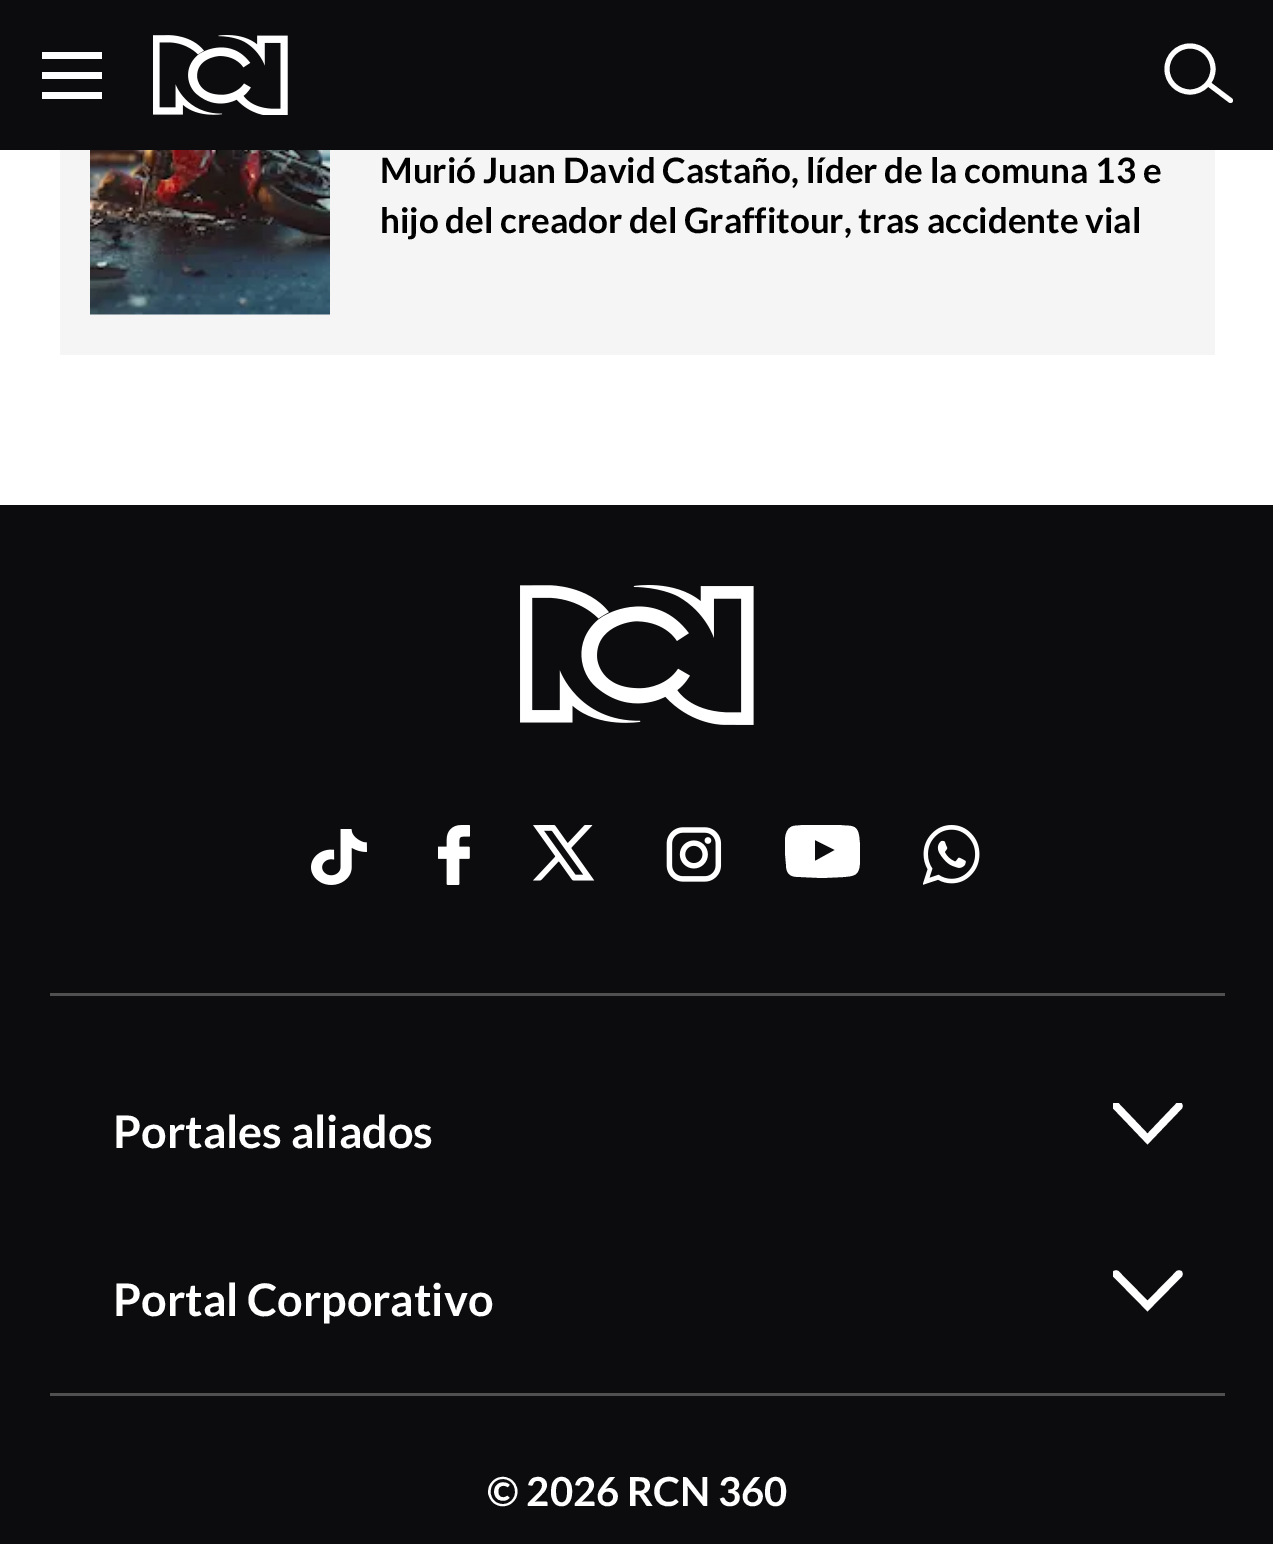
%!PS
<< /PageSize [1273 1544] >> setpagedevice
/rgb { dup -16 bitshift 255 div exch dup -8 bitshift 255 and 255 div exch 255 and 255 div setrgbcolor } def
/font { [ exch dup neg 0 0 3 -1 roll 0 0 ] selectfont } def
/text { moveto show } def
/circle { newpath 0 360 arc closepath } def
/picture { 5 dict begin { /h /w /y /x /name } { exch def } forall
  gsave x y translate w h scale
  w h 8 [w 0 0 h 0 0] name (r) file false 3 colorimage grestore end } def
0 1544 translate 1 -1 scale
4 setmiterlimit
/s1 { /Lato-Bold 35 font 16#000000 rgb } def
/s2 { /Lato-Bold 45 font 16#FFFFFF rgb } def
/s3 { /Lato-Bold 40 font 16#FFFFFF rgb } def
16#FFFFFF rgb
0 0 1273 1544 rectfill
16#0C0C0E rgb
0 0 1273 150 rectfill
16#FFFFFF rgb
42 52 moveto 102 52 lineto 102 59 lineto 42 59 lineto closepath 42 72 moveto 102 72 lineto 102 79 lineto 42 79 lineto closepath 42 92 moveto 102 92 lineto 102 99 lineto 42 99 lineto closepath fill
(pic1.raw) 153 35 135 80 picture
5 setlinewidth
1190 69 23 circle stroke
1 setlinecap
1210 85 moveto 1230.5 100.5 lineto stroke
16#F5F5F5 rgb
60 150 1155 205 rectfill
(pic2.raw) 90 150 240 165 picture
s1
(Murió Juan David Castaño, líder de la comuna 13 e) 380 183 text
(hijo del creador del Graffitour, tras accidente vial) 380 233 text
16#0C0C0E rgb
0 505 1273 1039 rectfill
16#505050 rgb
50 993 1175 3 rectfill
(pic3.raw) 520 585 234 140 picture
(pic4.raw) 311 829 56 56 picture
(pic5.raw) 438 825 32 60 picture
(pic6.raw) 533 825 62 56 picture
(pic7.raw) 666 827 56 55 picture
gsave
785 825 75 60 rectclip
16#FFFFFF rgb
815 861 moveto 835 850 lineto 815 840 lineto closepath 822 825 moveto 840 825 lineto 845 826 850 825 854 827 curveto 860 830 859 839 860 844 curveto 860 862 lineto 859 874 857 876 843 877 curveto 822 878 lineto 801 877 lineto 792 877 786 876 786 864 curveto 785 853 lineto 785 846 783 831 791 827 curveto 794 825 798 826 802 825 curveto closepath fill
grestore
(pic8.raw) 923 825 57 60 picture
s2
(Portales aliados) 113 1148 text
gsave
1113 1103 75 67 rectclip
7.5 setlinewidth
1116 1106 moveto 1147.5 1139 lineto 1179 1106 lineto stroke
grestore
(Portal Corporativo) 113 1316 text
gsave
1113 1270 75 68 rectclip
7.5 setlinewidth
1116 1274 moveto 1147.5 1306 lineto 1179 1274 lineto stroke
grestore
16#505050 rgb
50 1393 1175 3 rectfill
s3
(© 2026 RCN 360) 487 1506 text
showpage
